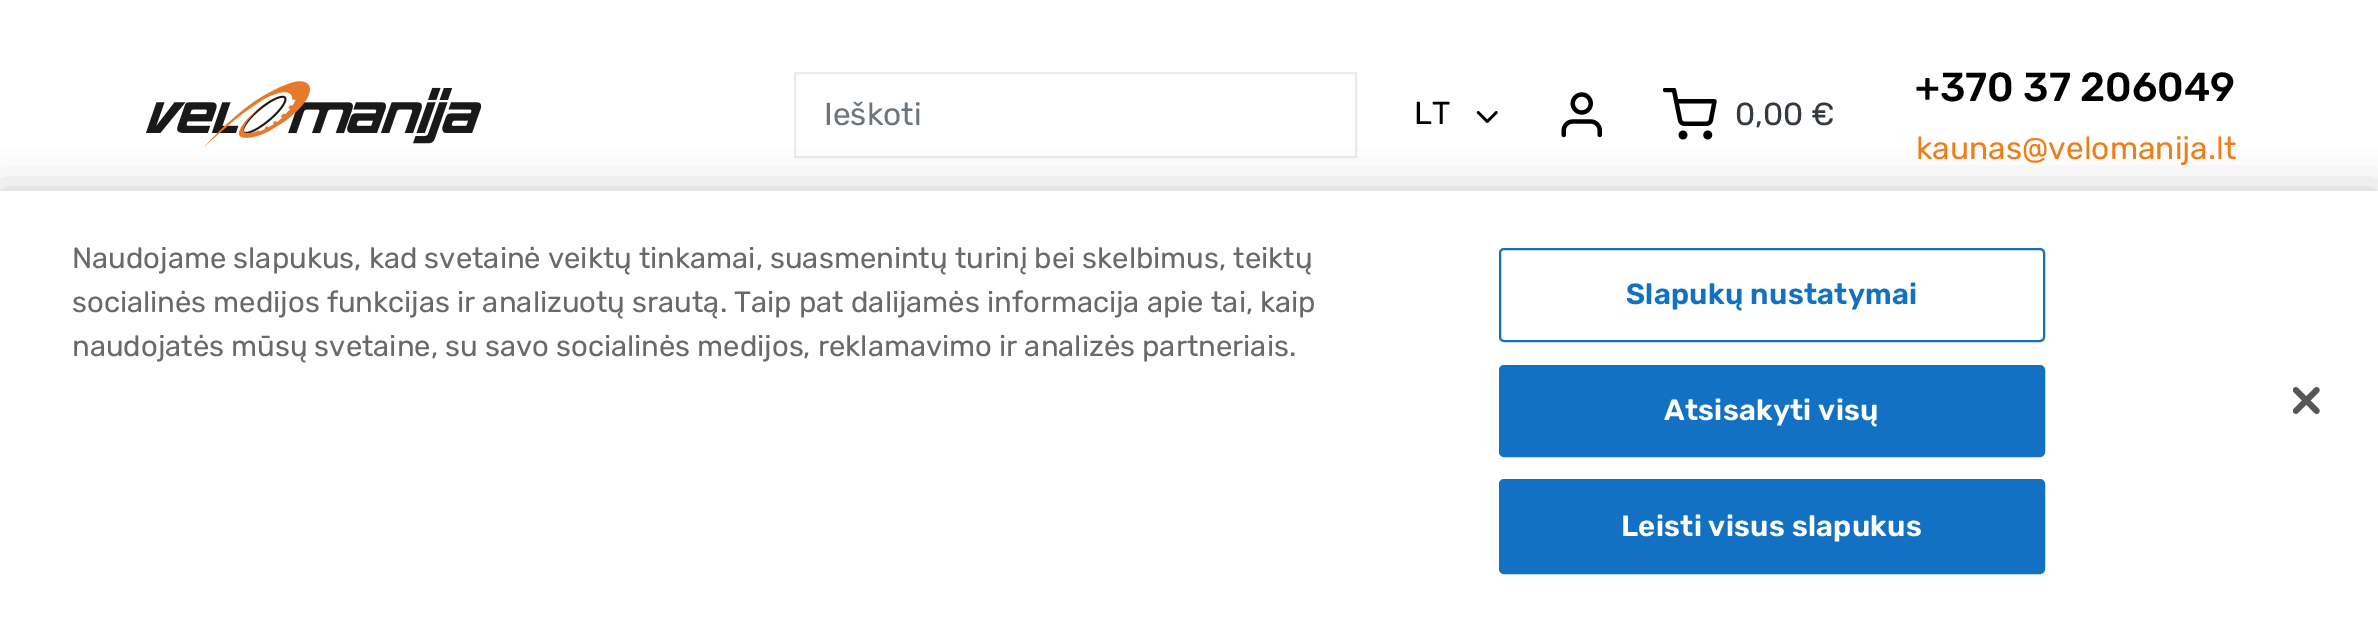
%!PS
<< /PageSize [2378 618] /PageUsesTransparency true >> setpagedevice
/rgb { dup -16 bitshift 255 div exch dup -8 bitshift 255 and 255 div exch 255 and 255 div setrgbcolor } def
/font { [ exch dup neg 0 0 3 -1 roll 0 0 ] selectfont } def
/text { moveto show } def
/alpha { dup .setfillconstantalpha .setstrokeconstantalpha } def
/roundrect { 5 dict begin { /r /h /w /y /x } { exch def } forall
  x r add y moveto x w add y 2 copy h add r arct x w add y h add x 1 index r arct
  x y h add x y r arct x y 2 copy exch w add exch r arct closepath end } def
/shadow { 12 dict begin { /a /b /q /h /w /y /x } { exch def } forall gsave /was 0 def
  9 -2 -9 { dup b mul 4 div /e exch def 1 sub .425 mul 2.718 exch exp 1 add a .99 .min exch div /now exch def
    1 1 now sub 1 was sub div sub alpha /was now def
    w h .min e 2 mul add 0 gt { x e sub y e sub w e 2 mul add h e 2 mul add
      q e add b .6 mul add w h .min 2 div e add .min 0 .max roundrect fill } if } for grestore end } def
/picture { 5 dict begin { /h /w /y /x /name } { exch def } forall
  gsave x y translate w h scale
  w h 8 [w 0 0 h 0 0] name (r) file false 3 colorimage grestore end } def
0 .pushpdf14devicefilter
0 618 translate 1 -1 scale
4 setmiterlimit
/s1 { /Rubik-Regular 31.75 font 16#6C757D rgb } def
/s2 { /Rubik-Regular 31.75 font 16#000000 rgb } def
/s3 { /Rubik-Regular 31.75 font 16#343A40 rgb } def
/s4 { /Rubik-Medium 40.5 font 16#000000 rgb } def
/s5 { /Rubik-Regular 31.75 font 16#EF7F1A rgb } def
/s6 { /Rubik-Regular 29.25 font 16#696969 rgb } def
16#FFFFFF rgb
0 0 2378 618 rectfill
(pic1.raw) 146 81 336 66 picture
16#EBEBEB rgb
2 setlinewidth
795 73 561 84 rectstroke
s1
(Ieškoti) 824 125 text
s2
(LT) 1414 124 text
(pic2.raw) 1476 111 22 12 picture
(pic3.raw) 1561 92 41 46 picture
(pic4.raw) 1663 88 54 52 picture
s3
(0,00 €) 1735 125 text
s4
(+370 37 206049) 1915 101 text
s5
(kaunas@velomanija.lt) 1916 159 text
16#000000 rgb
0 191 2378 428 0 20 0.2 shadow
16#FFFFFF rgb
0 191 2378 427 rectfill
s6
(Naudojame slapukus, kad svetainė veiktų tinkamai, suasmenintų turinį bei skelbimus, teiktų) 72 268 text
(socialinės medijos funkcijas ir analizuotų srautą. Taip pat dalijamės informacija apie tai, kaip) 72 312 text
(naudojatės mūsų svetaine, su savo socialinės medijos, reklamavimo ir analizės partneriais.) 72 356 text
16#1371C3 rgb
1500 249 544 92 4 roundrect stroke
/Rubik-SemiBold 29.25 font
1626 304 moveto 0.25 0 (Slapukų nustatymai) ashow
1500 366 544 90 4 roundrect gsave fill grestore
stroke
16#FFFFFF rgb
1664 420 moveto 0.25 0 (Atsisakyti visų) ashow
16#1371C3 rgb
1500 480 544 93 4 roundrect gsave fill grestore
stroke
16#FFFFFF rgb
1621 536 moveto 0.25 0 (Leisti visus slapukus) ashow
(pic5.raw) 2293 387 27 27 picture
.poppdf14devicefilter showpage
